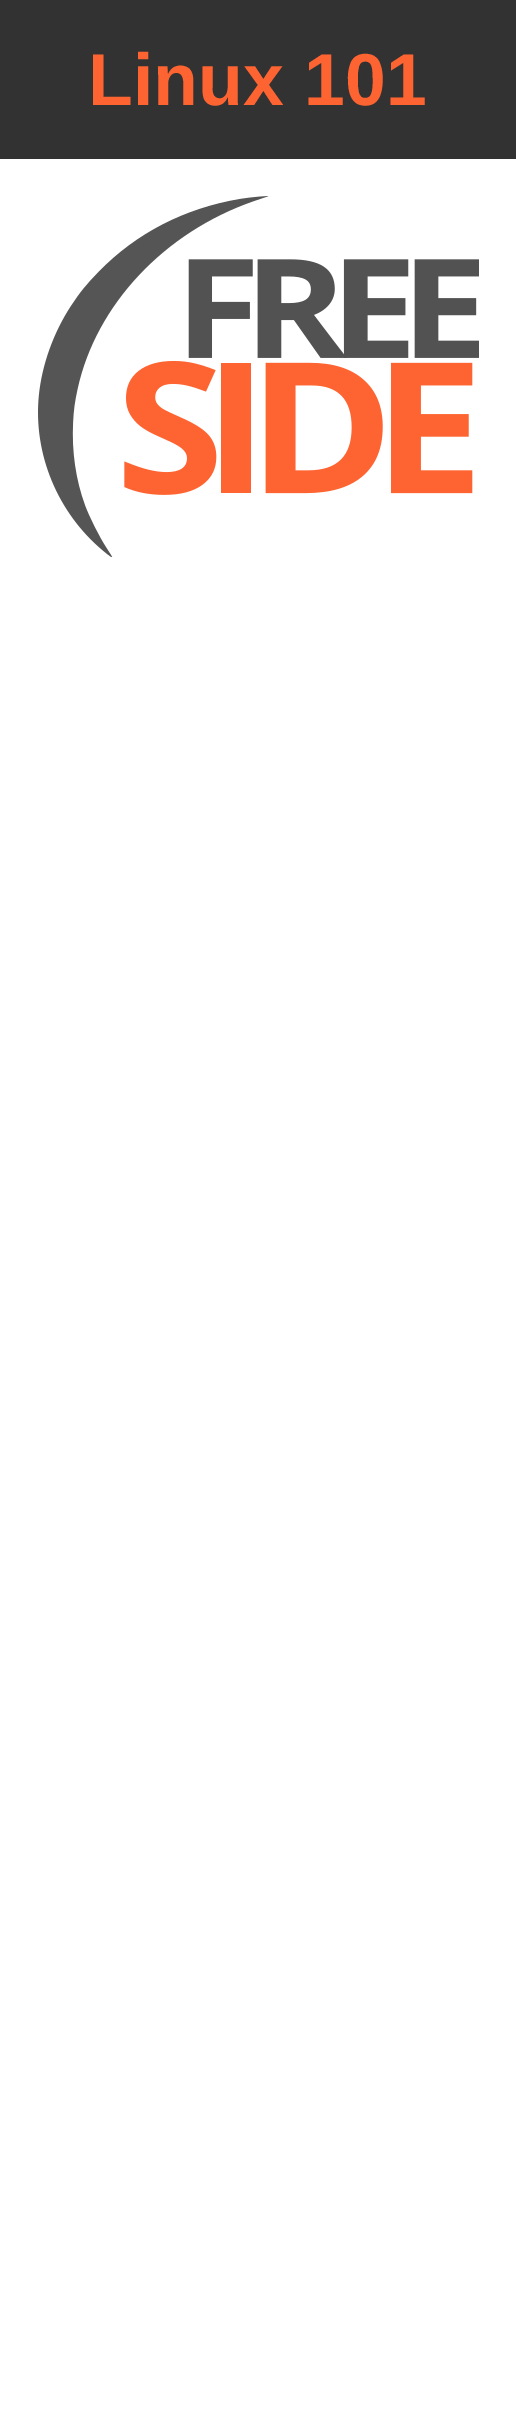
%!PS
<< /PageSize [516 2435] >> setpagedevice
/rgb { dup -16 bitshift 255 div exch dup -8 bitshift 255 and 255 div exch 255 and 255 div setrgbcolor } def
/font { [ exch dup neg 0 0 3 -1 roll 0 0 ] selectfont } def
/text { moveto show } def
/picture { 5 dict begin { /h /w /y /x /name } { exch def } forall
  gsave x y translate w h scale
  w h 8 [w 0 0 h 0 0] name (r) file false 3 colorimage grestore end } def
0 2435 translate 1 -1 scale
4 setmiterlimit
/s1 { /LiberationSans-Bold 73.5 font 16#FE6431 rgb } def
16#FFFFFF rgb
0 0 516 2435 rectfill
(pic1.raw) 38 196 441 361 picture
16#323232 rgb
0 0 516 159 rectfill
s1
(Linux 101) 88 105 text
showpage
